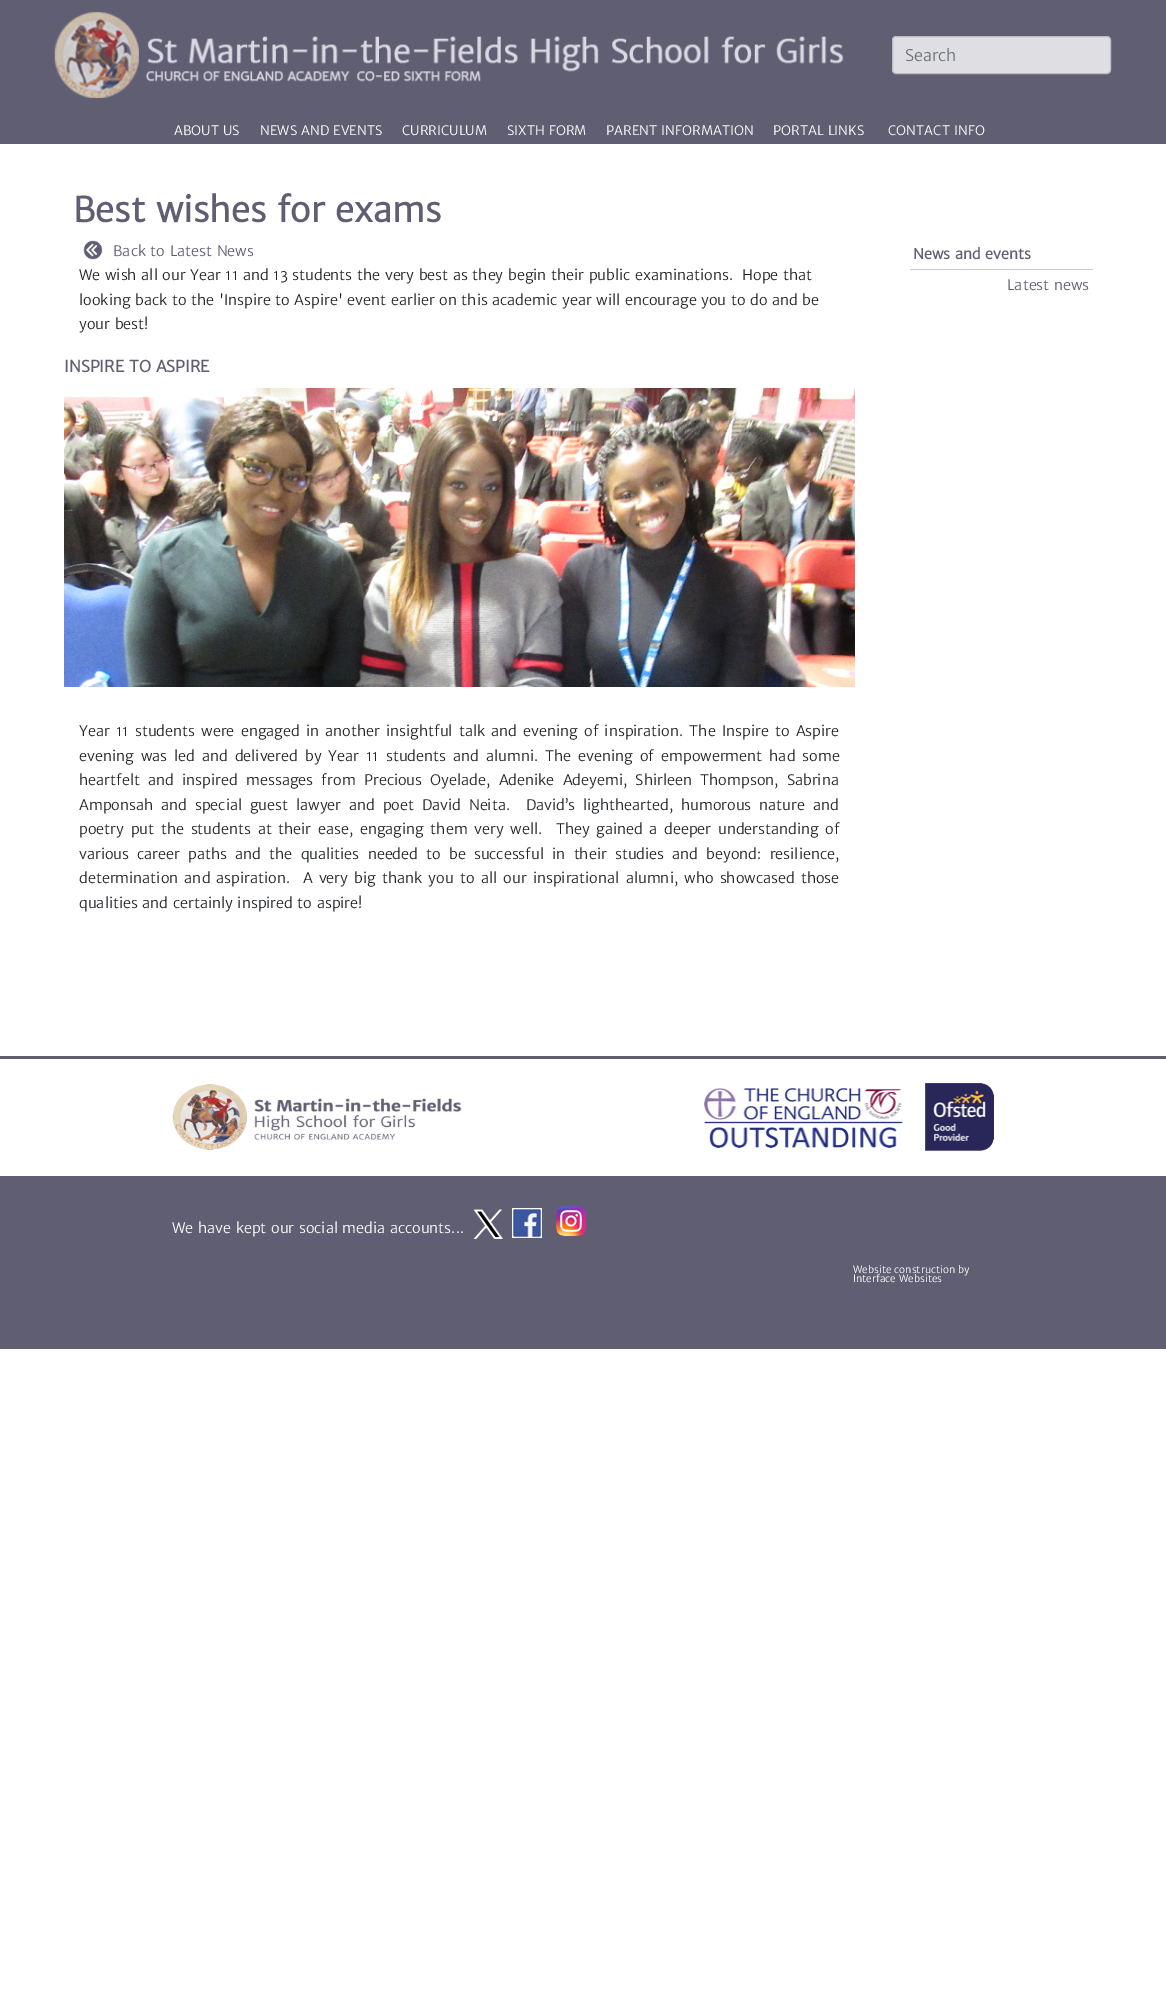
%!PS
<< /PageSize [1166 2000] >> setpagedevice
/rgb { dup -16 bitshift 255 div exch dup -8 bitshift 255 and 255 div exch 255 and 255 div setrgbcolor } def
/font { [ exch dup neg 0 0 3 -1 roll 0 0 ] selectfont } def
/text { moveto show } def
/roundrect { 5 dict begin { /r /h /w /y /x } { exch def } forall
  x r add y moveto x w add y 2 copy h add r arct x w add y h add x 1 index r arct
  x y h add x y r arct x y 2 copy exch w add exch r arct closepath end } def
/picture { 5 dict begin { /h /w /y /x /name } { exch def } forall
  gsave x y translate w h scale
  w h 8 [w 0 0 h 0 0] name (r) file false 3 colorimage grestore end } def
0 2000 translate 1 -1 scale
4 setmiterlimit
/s1 { /MerriweatherSans-Regular 16 font 16#6A707B rgb } def
/s2 { /MerriweatherSans-Regular 13 font 16#FFFFFF rgb } def
/s3 { /MerriweatherSans-Bold 34.1 font 16#605E73 rgb } def
/s4 { /MerriweatherSans-Regular 14.4 font 16#605E73 rgb } def
/s5 { /MerriweatherSans-Regular 14.4 font 16#212529 rgb } def
/s6 { /MerriweatherSans-Bold 15.75 font 16#605E73 rgb } def
/s7 { /MerriweatherSans-Bold 14.4 font 16#605E73 rgb } def
/s8 { /MerriweatherSans-Regular 14.4 font 16#FFFFFF rgb } def
/s9 { /MerriweatherSans-Regular 10 font 16#FFFFFF rgb } def
16#FFFFFF rgb
0 0 1166 2000 rectfill
16#605E73 rgb
0 0 1166 144 rectfill
(pic1.raw) 54 11 790 88 picture
16#DFDFE3 rgb
892.5 36.5 218 37 3.5 roundrect gsave fill grestore
16#B8BCC5 rgb
stroke
s1
(Search) 905 61 text
s2
(ABOUT US) 174 135 text
(NEWS AND EVENTS) 260 135 text
(CURRICULUM) 402 135 text
(SIXTH FORM) 507 135 text
(PARENT INFORMATION) 606 135 text
(PORTAL LINKS) 773 135 text
(CONTACT INFO) 888 135 text
s3
(Best wishes for exams) 73 222 text
(pic2.raw) 83 240 20 20 picture
s4
(Back to Latest News) 113 256 text
s5
(We wish all our Year 11 and 13 students the very best as they begin their public examinations.  Hope that) 79 280 text
(looking back to the 'Inspire to Aspire' event earlier on this academic year will encourage you to do and be) 79 305 text
(your best!) 79 329 text
s6
(INSPIRE TO ASPIRE) 64 372 text
(pic3.raw) 64 388 791 299 picture
/MerriweatherSans-Regular 14.4 font
16#212529 rgb
79 736 moveto 1.6 0 32 (Year 11 students were engaged in another insightful talk and evening of inspiration. The Inspire to Aspire) widthshow
79 761 moveto 2.4 0 32 (evening was led and delivered by Year 11 students and alumni. The evening of empowerment had some) widthshow
79 785 moveto 3.75 0 32 (heartfelt and inspired messages from Precious Oyelade, Adenike Adeyemi, Shirleen Thompson, Sabrina) widthshow
79 810 moveto 3.25 0 32 (Amponsah and special guest lawyer and poet David Neita.  David’s lighthearted, humorous nature and) widthshow
79 834 moveto 2.1 0 32 (poetry put the students at their ease, engaging them very well.  They gained a deeper understanding of) widthshow
79 859 moveto 3.6 0 32 (various career paths and the qualities needed to be successful in their studies and beyond: resilience,) widthshow
79 883 moveto 1.6 0 32 (determination and aspiration.  A very big thank you to all our inspirational alumni, who showcased those) widthshow
(qualities and certainly inspired to aspire!) 79 908 text
16#CCCCCC rgb
910 269 183 1 rectfill
s7
(News and events) 913 259 text
s4
(Latest news) 1007 290 text
0 1176 1166 173 rectfill
0 1056 1166 3 rectfill
(pic4.raw) 172 1084 290 66 picture
(pic5.raw) 704 1083 290 68 picture
s8
(We have kept our social media accounts...) 172 1233 text
(pic6.raw) 473 1209 30 30 picture
(pic7.raw) 512 1208 30 30 picture
(pic8.raw) 556 1206 30 30 picture
s9
(Website construction by) 853 1273 text
(Interface Websites) 853 1282 text
showpage
